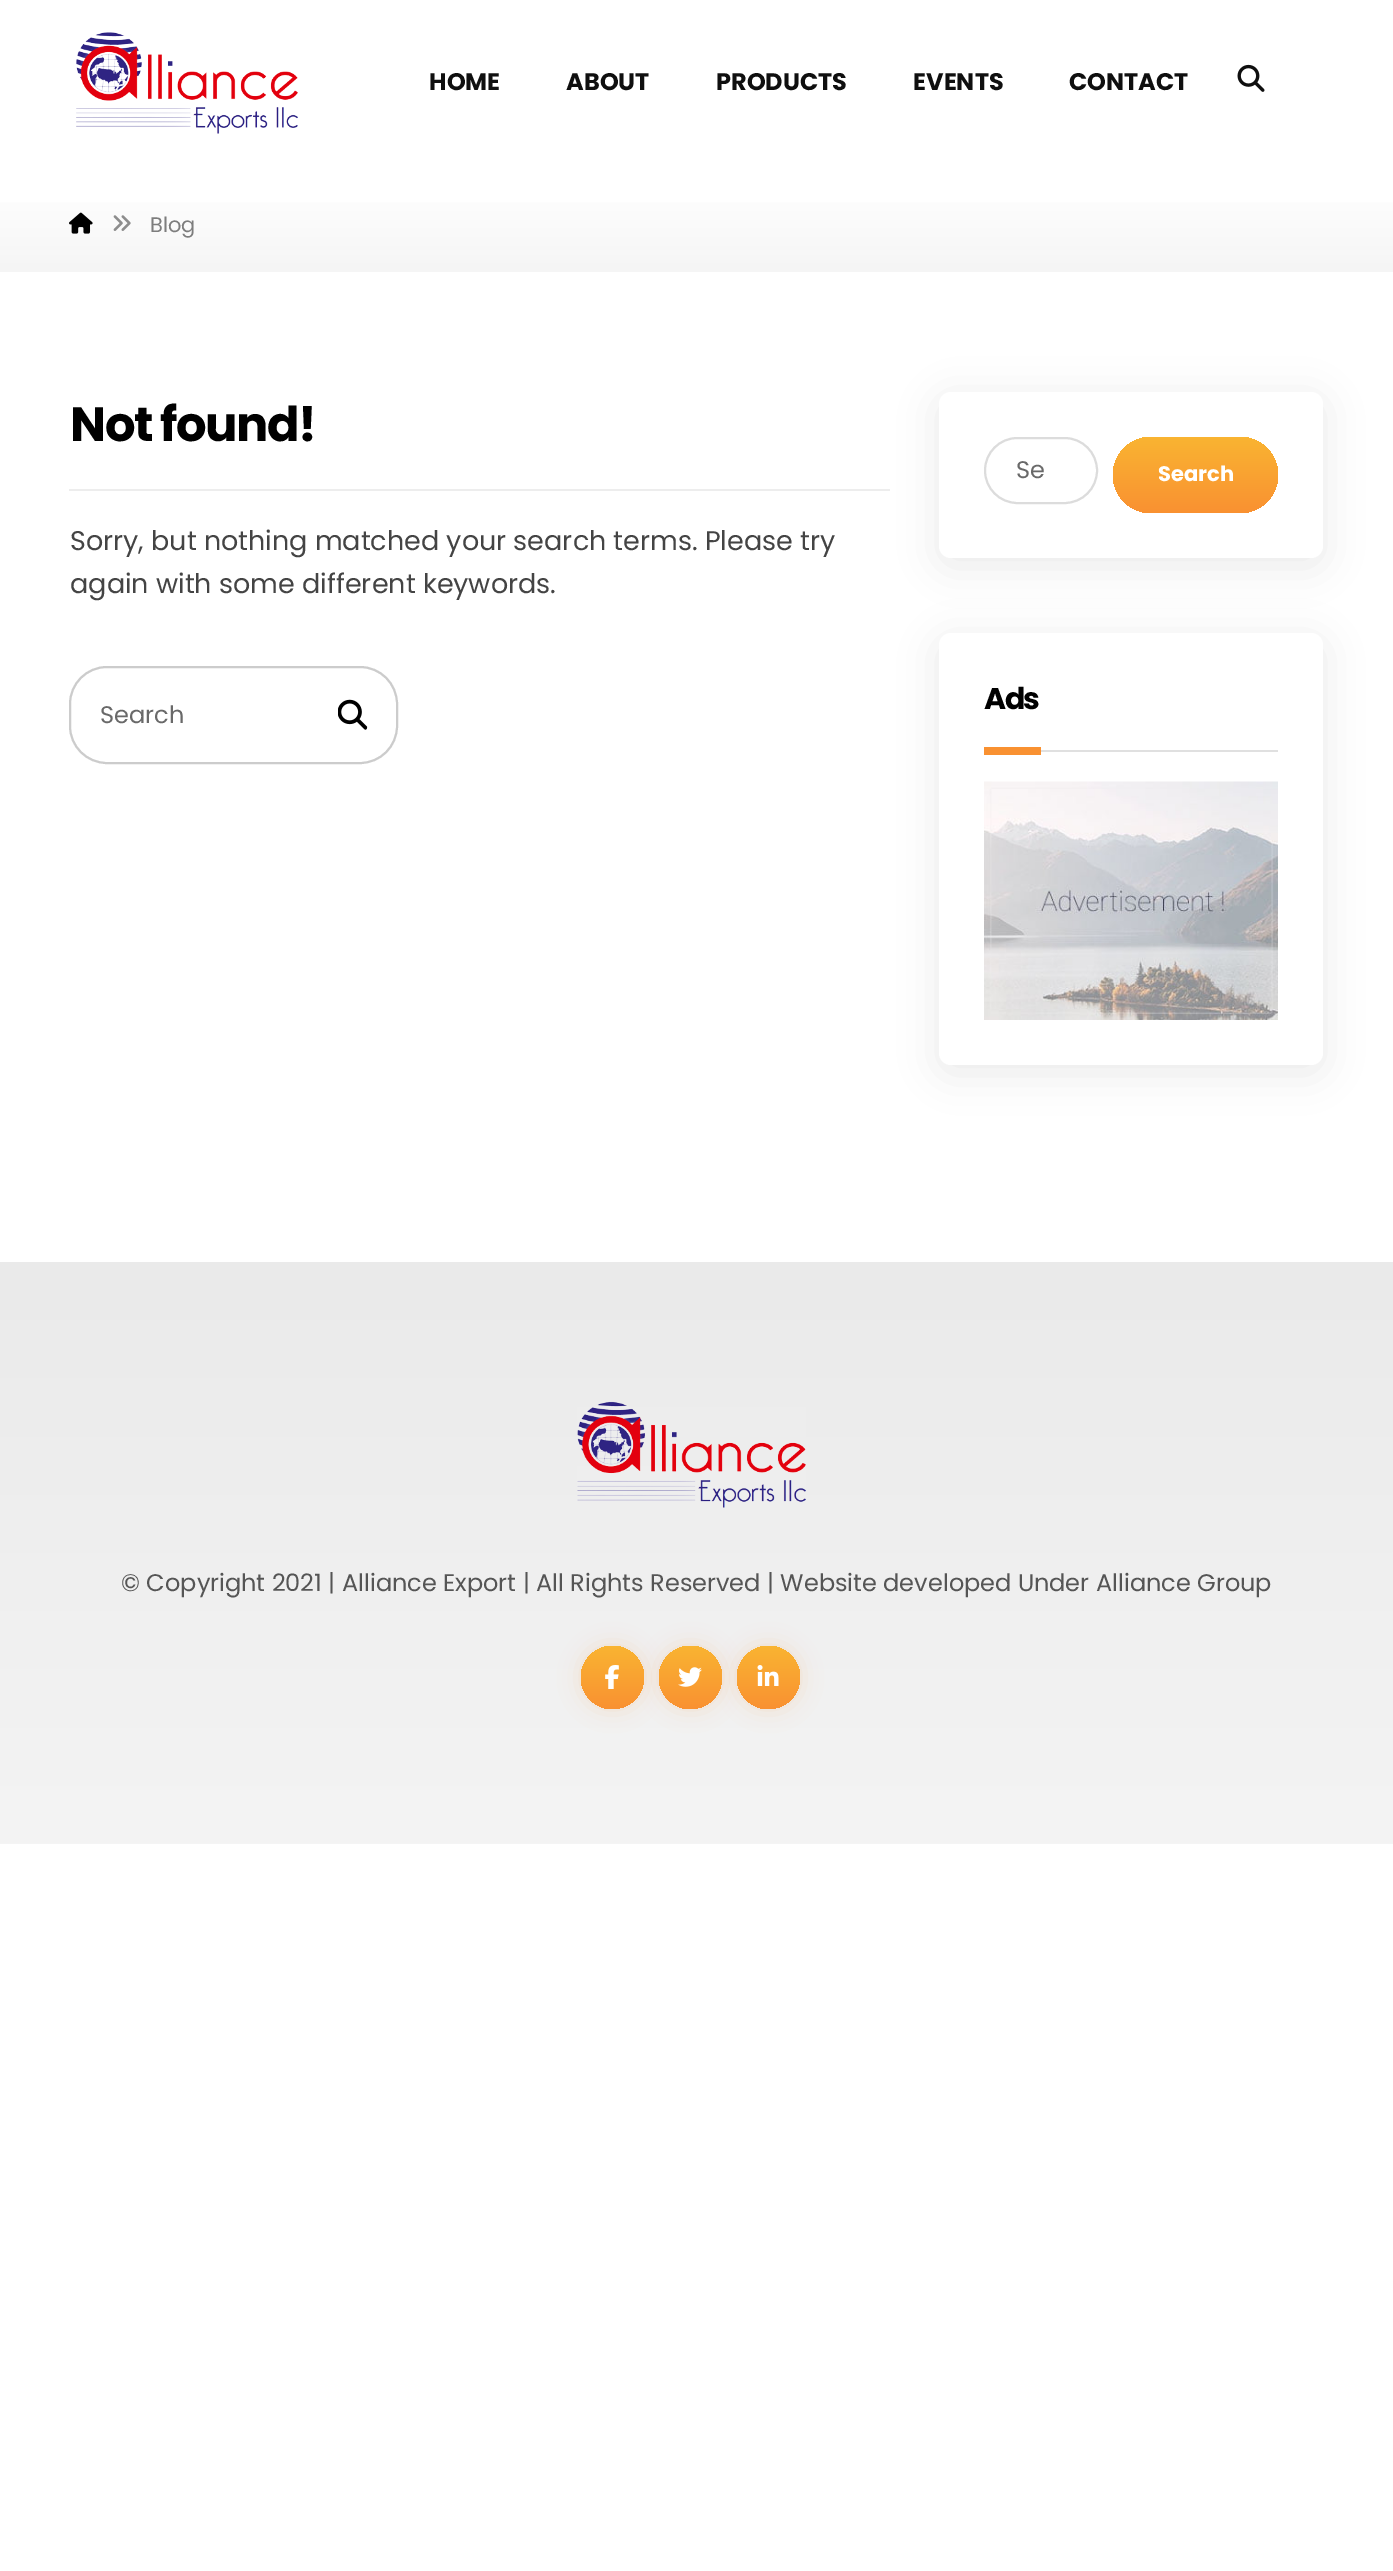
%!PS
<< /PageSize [1393 2571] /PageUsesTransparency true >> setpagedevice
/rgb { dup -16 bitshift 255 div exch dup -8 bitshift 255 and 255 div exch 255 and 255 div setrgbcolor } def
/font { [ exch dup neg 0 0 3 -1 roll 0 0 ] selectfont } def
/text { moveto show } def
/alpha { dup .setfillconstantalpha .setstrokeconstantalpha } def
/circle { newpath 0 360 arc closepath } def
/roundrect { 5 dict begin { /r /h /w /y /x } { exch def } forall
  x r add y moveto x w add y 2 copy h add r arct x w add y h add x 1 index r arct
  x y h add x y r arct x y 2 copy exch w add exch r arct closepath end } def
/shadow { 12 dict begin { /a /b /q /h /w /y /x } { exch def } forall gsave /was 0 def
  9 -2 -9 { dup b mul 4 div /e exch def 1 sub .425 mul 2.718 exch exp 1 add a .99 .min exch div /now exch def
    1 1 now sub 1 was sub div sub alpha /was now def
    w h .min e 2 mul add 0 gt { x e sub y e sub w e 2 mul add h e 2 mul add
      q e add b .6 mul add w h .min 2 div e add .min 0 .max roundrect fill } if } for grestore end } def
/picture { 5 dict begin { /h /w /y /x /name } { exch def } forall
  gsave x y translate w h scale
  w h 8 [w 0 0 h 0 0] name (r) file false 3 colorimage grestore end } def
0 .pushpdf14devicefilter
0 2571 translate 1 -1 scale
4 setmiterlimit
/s1 { /Poppins-Bold 24 font 16#0F0F0F rgb } def
/s2 { /Poppins-Regular 21 font 16#7D7D7D rgb } def
/s3 { /Poppins-Regular 27 font 16#444444 rgb } def
/s4 { /Poppins-Regular 24 font 16#696969 rgb } def
/s5 { /Poppins-Bold 21 font 16#FFFFFF rgb } def
/s6 { /Poppins-Regular 24 font 16#555555 rgb } def
16#FFFFFF rgb
0 0 1393 2571 rectfill
(pic1.raw) 76 32 222 102 picture
s1
(HOME) 429 90 text
(ABOUT) 566 90 text
(PRODUCTS) 716 90 text
(EVENTS) 913 90 text
(CONTACT) 1069 90 text
(pic2.raw) 1237 64 28 28 picture
gsave 0 202 moveto 1393 202 lineto 1393 272 lineto 0 272 lineto closepath clip newpath
<< /ShadingType 2 /ColorSpace /DeviceRGB /Coords [697 272 697 179] /Extend [true true] /Function << /FunctionType 2 /Domain [0 1] /C0 [0.961 0.961 0.961] /C1 [1 1 1] /N 1 >> >> shfill grestore
(pic3.raw) 69 212 24 22 picture
(pic4.raw) 113 215 18 16 picture
s2
(Blog) 150 232 text
16#EDEDED rgb
69 489 821 2 rectfill
/Poppins-Bold 48 font
16#000000 rgb
70 441 moveto -1.5 0 (Not found!) ashow
s3
(Sorry, but nothing matched your search terms. Please try) 70 550 text
(again with some different keywords.) 70 593 text
16#CCCCCC rgb
2 setlinewidth
70 667 327 96 37 roundrect stroke
s4
(Search) 100 723 text
(pic5.raw) 338 699 30 31 picture
16#000000 rgb
939 399 384 167 12 19 0.08 shadow
16#FFFFFF rgb
939 392 384 166 12 roundrect fill
16#DCDCDC rgb
985 438 112 65 32.5 roundrect stroke
s4
(Se) 1016 478 text
gsave 1113 437 165 76 38 roundrect clip newpath
<< /ShadingType 2 /ColorSpace /DeviceRGB /Coords [1196 513 1196 437] /Extend [true true] /Function << /FunctionType 2 /Domain [0 1] /C0 [0.976 0.569 0.192] /C1 [0.976 0.706 0.192] /N 1 >> >> shfill grestore
s5
(Search) 1158 481 text
16#000000 rgb
939 641 384 432 12 19 0.08 shadow
16#FFFFFF rgb
939 633 384 432 12 roundrect fill
16#E0E0E0 rgb
1041 750 237 2 rectfill
/Poppins-Bold 30 font
16#000000 rgb
984 709 moveto -1.5 0 (Ads) ashow
16#F99131 rgb
984 747 57 8 rectfill
(pic6.raw) 984 781 294 239 picture
gsave 0 1262 moveto 1393 1262 lineto 1393 1844 lineto 0 1844 lineto closepath clip newpath
<< /ShadingType 2 /ColorSpace /DeviceRGB /Coords [697 1262 697 1844] /Extend [true true] /Function << /FunctionType 2 /Domain [0 1] /C0 [0.918 0.918 0.918] /C1 [0.957 0.957 0.957] /N 1 >> >> shfill grestore
(pic7.raw) 577 1401 229 107 picture
s6
(© Copyright 2021 | Alliance Export | All Rights Reserved | Website developed Under Alliance Group) 121 1591 text
16#F99131 rgb
581 1646 63 63 31.5 11 0.2 shadow
gsave 612.5 1677.5 31.5 circle clip newpath
<< /ShadingType 2 /ColorSpace /DeviceRGB /Coords [612 1709 612 1646] /Extend [true true] /Function << /FunctionType 2 /Domain [0 1] /C0 [0.976 0.569 0.192] /C1 [0.976 0.706 0.192] /N 1 >> >> shfill grestore
(pic8.raw) 605 1665 14 24 picture
659 1646 63 63 31.5 11 0.2 shadow
gsave 690.5 1677.5 31.5 circle clip newpath
<< /ShadingType 2 /ColorSpace /DeviceRGB /Coords [690 1709 690 1646] /Extend [true true] /Function << /FunctionType 2 /Domain [0 1] /C0 [0.976 0.569 0.192] /C1 [0.976 0.706 0.192] /N 1 >> >> shfill grestore
(pic9.raw) 678 1667 24 20 picture
737 1646 63 63 31.5 11 0.2 shadow
gsave 768.5 1677.5 31.5 circle clip newpath
<< /ShadingType 2 /ColorSpace /DeviceRGB /Coords [768 1709 768 1646] /Extend [true true] /Function << /FunctionType 2 /Domain [0 1] /C0 [0.976 0.569 0.192] /C1 [0.976 0.706 0.192] /N 1 >> >> shfill grestore
(pic10.raw) 757 1665 22 21 picture
.poppdf14devicefilter showpage
